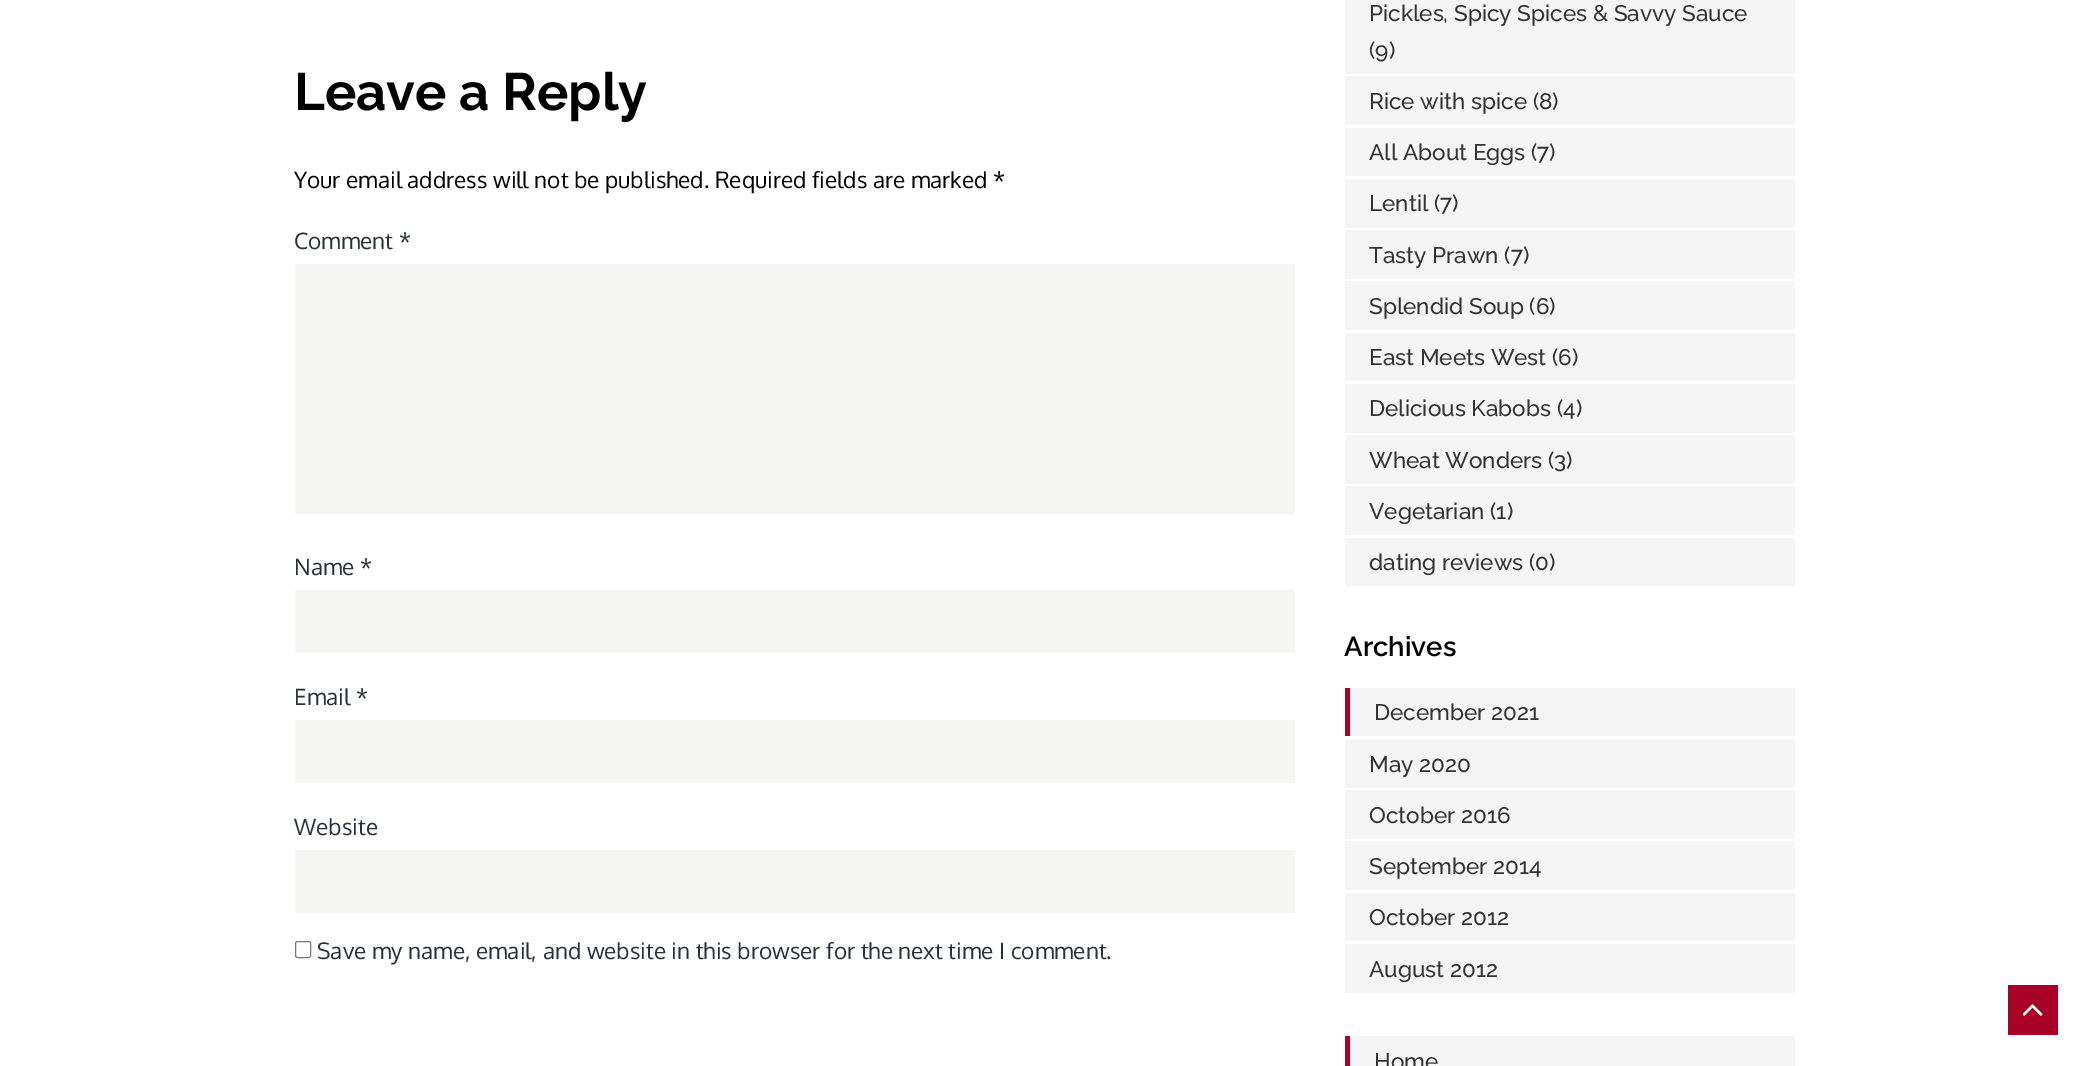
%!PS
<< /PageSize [2088 1066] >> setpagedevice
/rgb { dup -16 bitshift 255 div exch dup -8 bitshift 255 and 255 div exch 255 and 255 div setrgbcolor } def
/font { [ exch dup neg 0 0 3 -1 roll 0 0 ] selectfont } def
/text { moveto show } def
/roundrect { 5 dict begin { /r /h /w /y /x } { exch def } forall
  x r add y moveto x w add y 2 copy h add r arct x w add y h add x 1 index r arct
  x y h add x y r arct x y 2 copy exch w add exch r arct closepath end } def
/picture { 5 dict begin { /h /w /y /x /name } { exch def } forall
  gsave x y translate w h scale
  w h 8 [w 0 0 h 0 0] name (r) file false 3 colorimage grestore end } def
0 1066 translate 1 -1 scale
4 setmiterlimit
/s1 { /Raleway-Bold 52.5 font 16#000000 rgb } def
/s2 { /Oxygen-Regular 22.5 font 16#000000 rgb } def
/s3 { /Oxygen-Regular 22.5 font 16#273238 rgb } def
/s4 { /Raleway-Medium 22.5 font 16#333333 rgb } def
/s5 { /Raleway-SemiBold 27.5 font 16#000000 rgb } def
16#FFFFFF rgb
0 0 2088 1066 rectfill
s1
(Leave a Reply) 294 110 text
s2
(Your email address will not be published. Required fields are marked *) 294 188 text
s3
(Comment *) 294 249 text
16#F5F5F3 rgb
295 264 1000 250 rectfill
s3
(Name *) 294 575 text
16#F5F5F3 rgb
295 590 1000 63 rectfill
s3
(Email *) 294 705 text
16#F5F5F3 rgb
295 720 1000 63 rectfill
s3
(Website) 294 835 text
16#F5F5F3 rgb
295 850 1000 63 rectfill
16#767676 rgb
295.5 941.5 15 16 2 roundrect stroke
s3
(Save my name, email, and website in this browser for the next time I comment.) 317 959 text
16#F5F5F5 rgb
1345 0 450 74 rectfill
s4
(Pickles, Spicy Spices & Savvy Sauce) 1369 21 text
(\(9\)) 1369 58 text
16#F5F5F5 rgb
1345 76 450 49 rectfill
s4
(Rice with spice \(8\)) 1369 109 text
16#F5F5F5 rgb
1345 128 450 48 rectfill
s4
(All About Eggs \(7\)) 1369 160 text
16#F5F5F5 rgb
1345 179 450 49 rectfill
s4
(Lentil \(7\)) 1369 211 text
16#F5F5F5 rgb
1345 230 450 49 rectfill
s4
(Tasty Prawn \(7\)) 1369 263 text
16#F5F5F5 rgb
1345 281 450 49 rectfill
s4
(Splendid Soup \(6\)) 1369 314 text
16#F5F5F5 rgb
1345 333 450 48 rectfill
s4
(East Meets West \(6\)) 1369 365 text
16#F5F5F5 rgb
1345 384 450 49 rectfill
s4
(Delicious Kabobs \(4\)) 1369 416 text
16#F5F5F5 rgb
1345 435 450 49 rectfill
s4
(Wheat Wonders \(3\)) 1369 468 text
16#F5F5F5 rgb
1345 486 450 49 rectfill
s4
(Vegetarian \(1\)) 1369 519 text
16#F5F5F5 rgb
1345 538 450 48 rectfill
s4
(dating reviews \(0\)) 1369 570 text
s5
(Archives) 1344 656 text
16#F5F5F5 rgb
1350 688 445 48 rectfill
16#A90125 rgb
1345 688 5 48 rectfill
s4
(December 2021) 1374 720 text
16#F5F5F5 rgb
1345 739 450 49 rectfill
s4
(May 2020) 1369 772 text
16#F5F5F5 rgb
1345 790 450 49 rectfill
s4
(October 2016) 1369 823 text
16#F5F5F5 rgb
1345 841 450 49 rectfill
s4
(September 2014) 1369 874 text
16#F5F5F5 rgb
1345 893 450 48 rectfill
s4
(October 2012) 1369 925 text
16#F5F5F5 rgb
1345 944 450 49 rectfill
s4
(August 2012) 1369 977 text
16#F5F5F5 rgb
1350 1036 445 30 rectfill
16#A90125 rgb
1345 1036 5 30 rectfill
s4
(Home) 1374 1069 text
16#A90125 rgb
2008 985 50 50 rectfill
(pic1.raw) 2023 1004 20 12 picture
showpage
